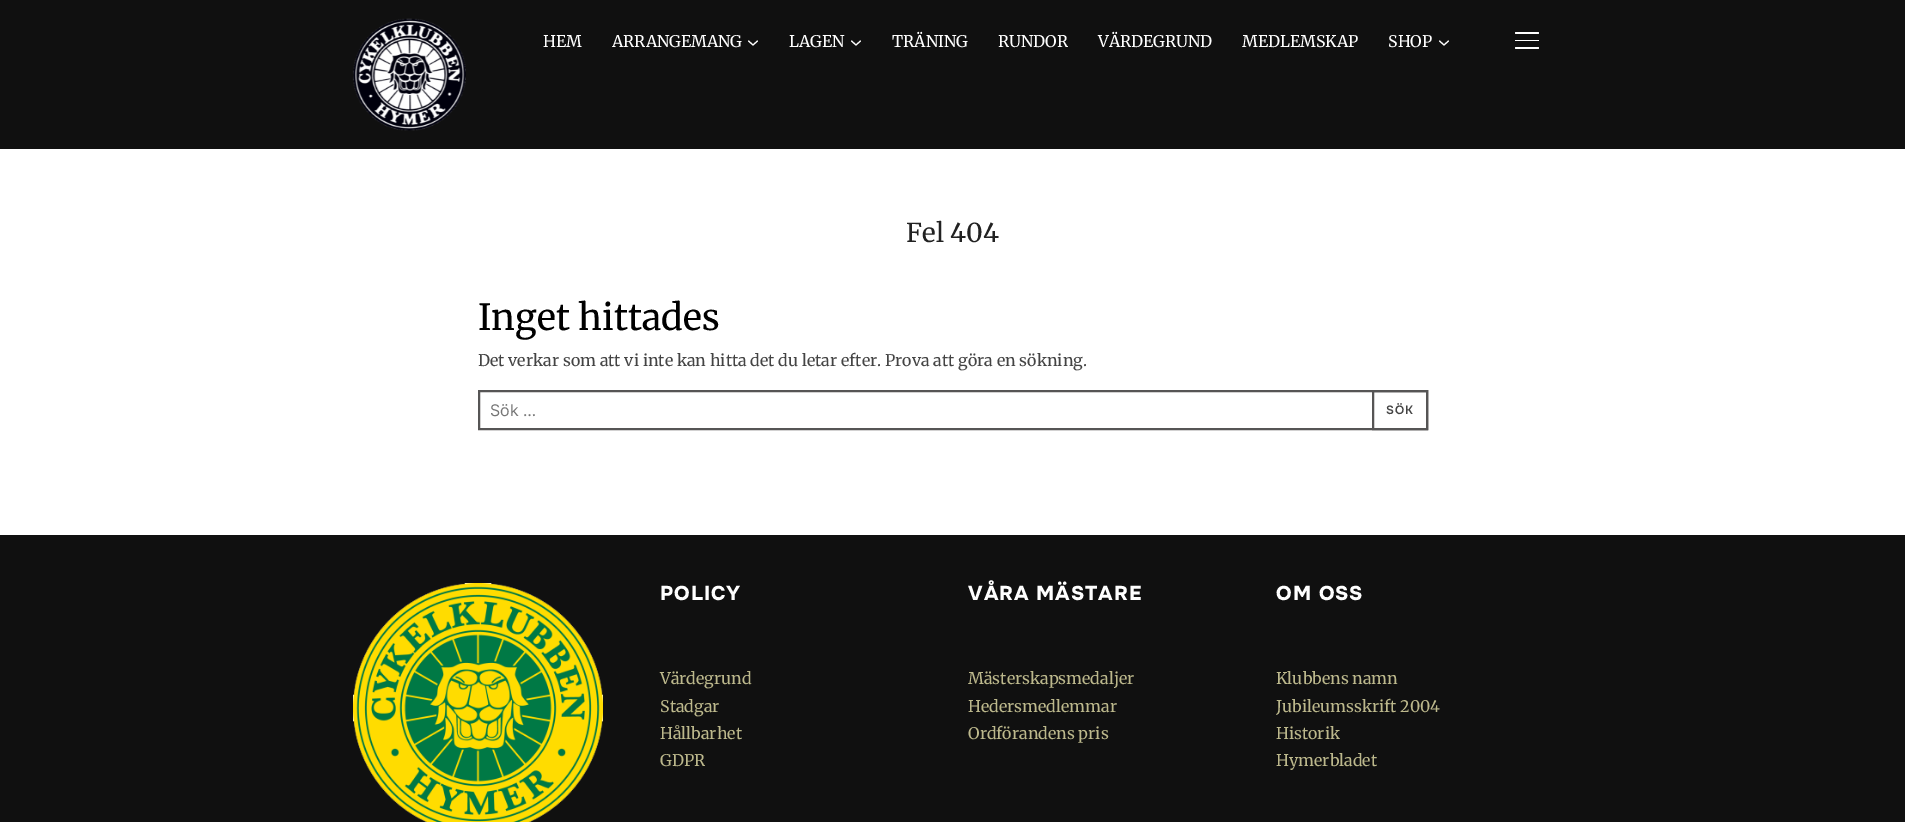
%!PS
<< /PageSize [1905 822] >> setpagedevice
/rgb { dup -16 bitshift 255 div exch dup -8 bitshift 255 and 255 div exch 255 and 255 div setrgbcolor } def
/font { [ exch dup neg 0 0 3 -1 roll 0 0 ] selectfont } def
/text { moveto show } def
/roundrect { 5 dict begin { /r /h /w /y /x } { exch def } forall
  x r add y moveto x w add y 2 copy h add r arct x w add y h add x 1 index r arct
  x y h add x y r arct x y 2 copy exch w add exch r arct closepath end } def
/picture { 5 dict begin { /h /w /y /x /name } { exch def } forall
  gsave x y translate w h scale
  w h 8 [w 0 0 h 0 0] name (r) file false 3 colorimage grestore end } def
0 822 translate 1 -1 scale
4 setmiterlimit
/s1 { /Merriweather-Regular 16 font 16#FFFFFF rgb } def
/s2 { /Merriweather-Regular 26 font 16#222222 rgb } def
/s3 { /Merriweather-Regular 36 font 16#000000 rgb } def
/s4 { /Merriweather-Regular 16 font 16#444444 rgb } def
/s5 { /Inter-Regular 16 font 16#757575 rgb } def
/s6 { /Merriweather-Regular 16 font 16#BCB88C rgb } def
16#FFFFFF rgb
0 0 1905 822 rectfill
16#101010 rgb
0 0 1905 149 rectfill
(pic1.raw) 352 18 114 113 picture
s1
(HEM) 543 47 text
(ARRANGEMANG) 612 47 text
1.1 setlinewidth
1 setlinecap
1 setlinejoin
748.5 41 moveto 753 45 lineto 757.5 41 lineto stroke
(LAGEN) 789 47 text
851.5 41 moveto 856 45 lineto 860.5 41 lineto stroke
(TRÄNING) 892 47 text
(RUNDOR) 998 47 text
(VÄRDEGRUND) 1098 47 text
(MEDLEMSKAP) 1242 47 text
(SHOP) 1388 47 text
1439.5 41 moveto 1444 45 lineto 1448.5 41 lineto stroke
1515 32 24 2 1 roundrect fill
1515 40 24 1 0.5 roundrect fill
1515 47 24 2 1 roundrect fill
s2
(Fel 404) 906 242 text
s3
(Inget hittades) 478 330 text
s4
(Det verkar som att vi inte kan hitta det du letar efter. Prova att göra en sökning.) 478 366 text
16#565555 rgb
2 setlinewidth
0 setlinecap
0 setlinejoin
479 391 948 38 rectstroke
s5
(Sök …) 490 416 text
16#565555 rgb
1373 391 54 38 rectstroke
/Onest-SemiBold 12 font
16#444444 rgb
1386 414 moveto 1 0 (SÖK) ashow
16#101010 rgb
0 535 1905 287 rectfill
(pic2.raw) 353 583 250 239 picture
/Onest-ExtraBold 20 font
16#FFFFFF rgb
660 600 moveto 1 0 (POLICY) ashow
s6
(Värdegrund) 660 684 text
(Stadgar) 660 712 text
(Hållbarhet) 660 739 text
(GDPR) 660 766 text
/Onest-ExtraBold 20 font
16#FFFFFF rgb
968 600 moveto 1 0 (VÅRA MÄSTARE) ashow
s6
(Mästerskapsmedaljer) 968 684 text
(Hedersmedlemmar) 968 712 text
(Ordförandens pris) 968 739 text
/Onest-ExtraBold 20 font
16#FFFFFF rgb
1276 600 moveto 1 0 (OM OSS) ashow
s6
(Klubbens namn) 1276 684 text
(Jubileumsskrift 2004) 1276 712 text
(Historik) 1276 739 text
(Hymerbladet) 1276 766 text
showpage
